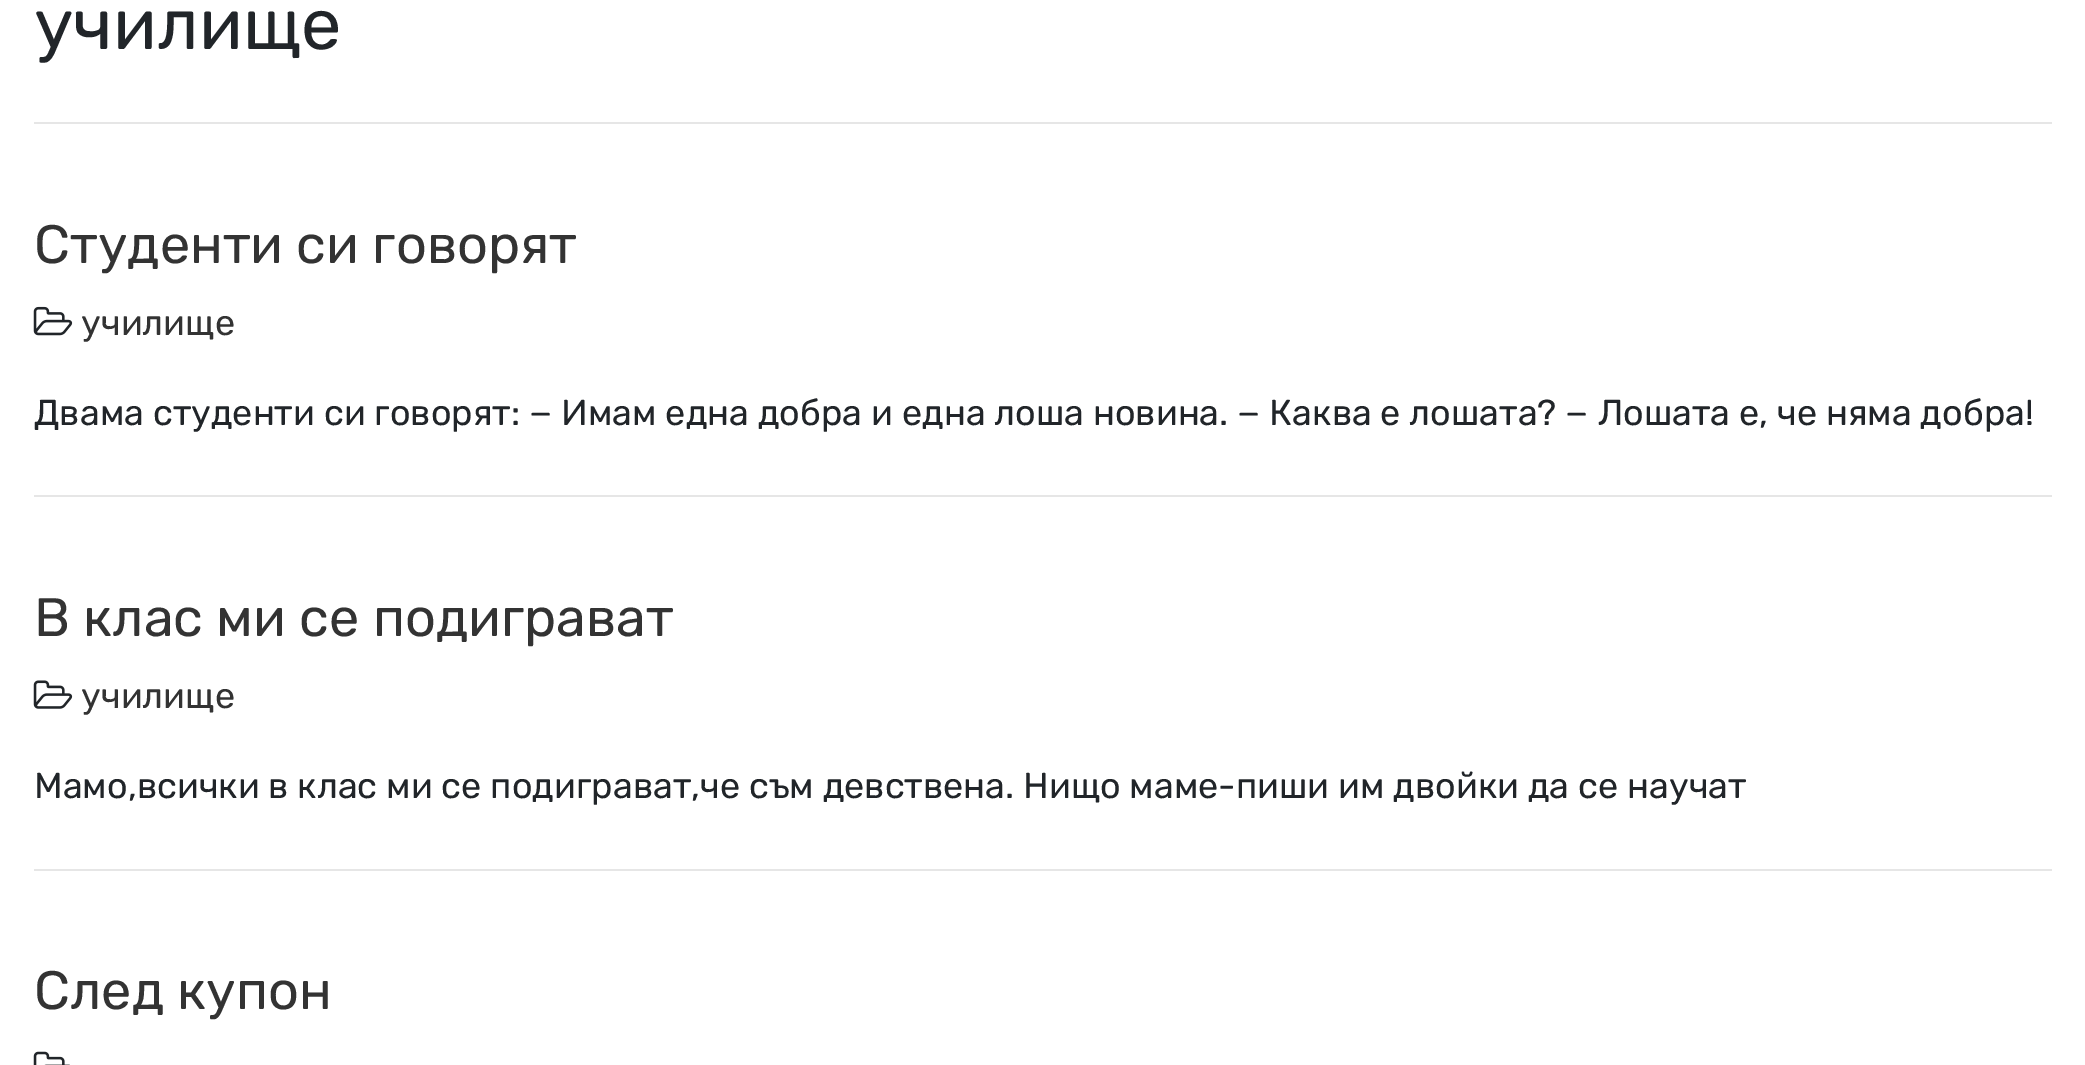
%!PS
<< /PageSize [2085 1065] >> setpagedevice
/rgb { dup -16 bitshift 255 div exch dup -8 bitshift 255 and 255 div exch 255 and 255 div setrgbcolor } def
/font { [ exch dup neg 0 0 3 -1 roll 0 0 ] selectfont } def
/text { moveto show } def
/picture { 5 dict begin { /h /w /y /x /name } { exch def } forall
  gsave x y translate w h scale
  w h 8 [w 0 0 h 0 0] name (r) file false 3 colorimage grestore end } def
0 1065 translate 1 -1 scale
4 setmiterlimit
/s1 { /Rubik-Light 72 font 16#212529 rgb } def
/s2 { /Rubik-Light 54 font 16#333333 rgb } def
/s3 { /Rubik-Light 36 font 16#333333 rgb } def
/s4 { /Rubik-Light 36 font 16#212529 rgb } def
16#FFFFFF rgb
0 0 2085 1065 rectfill
s1
(училище) 34 49 text
16#E6E6E6 rgb
34 122 2018 2 rectfill
s2
(Студенти си говорят) 34 263 text
(pic1.raw) 33 306 40 30 picture
s3
(училище) 81 335 text
s4
(Двама студенти си говорят: − Имам една добра и една лоша новина. − Каква е лошата? − Лошата е, че няма добра!) 34 425 text
16#E6E6E6 rgb
34 495 2018 2 rectfill
s2
(В клас ми се подиграват) 34 636 text
(pic2.raw) 33 680 40 29 picture
s3
(училище) 81 708 text
s4
(Мамо,всички в клас ми се подиграват,че съм девствена. Нищо маме-пиши им двойки да се научат) 34 798 text
16#E6E6E6 rgb
34 869 2018 2 rectfill
s2
(След купон) 34 1009 text
(pic3.raw) 33 1051 37 14 picture
showpage
